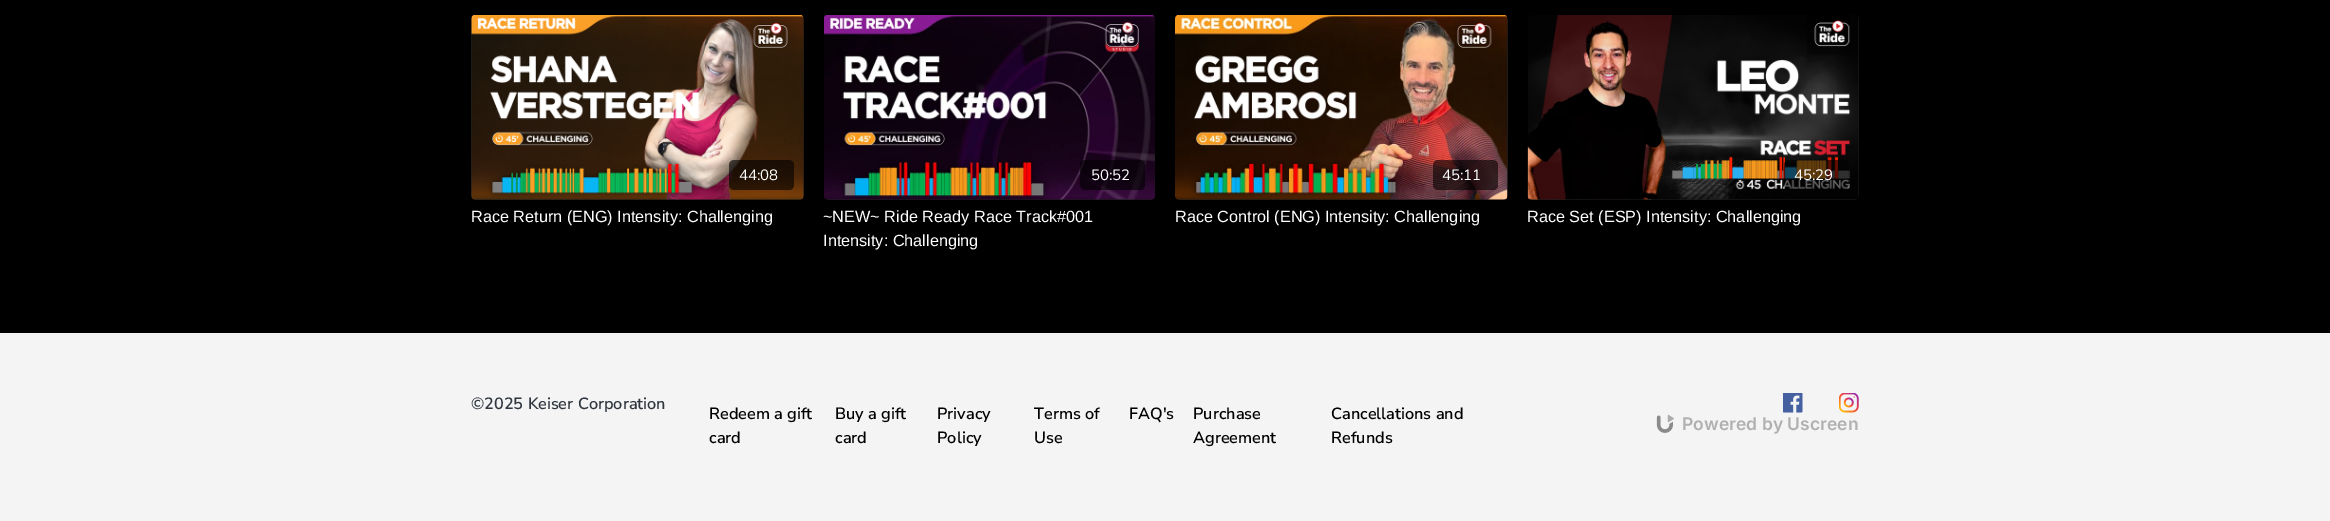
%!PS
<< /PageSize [2330 521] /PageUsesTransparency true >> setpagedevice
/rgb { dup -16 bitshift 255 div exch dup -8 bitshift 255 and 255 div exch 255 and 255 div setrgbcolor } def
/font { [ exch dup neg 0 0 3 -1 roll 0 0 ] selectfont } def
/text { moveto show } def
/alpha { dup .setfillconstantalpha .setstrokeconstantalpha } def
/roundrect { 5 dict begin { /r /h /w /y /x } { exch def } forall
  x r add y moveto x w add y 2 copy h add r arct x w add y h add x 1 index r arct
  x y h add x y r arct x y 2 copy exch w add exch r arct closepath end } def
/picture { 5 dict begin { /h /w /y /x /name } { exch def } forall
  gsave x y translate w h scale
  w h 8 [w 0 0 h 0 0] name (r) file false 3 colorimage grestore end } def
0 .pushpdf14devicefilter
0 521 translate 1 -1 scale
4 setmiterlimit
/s1 { /NunitoSans-Regular 15 font 16#FFFFFF rgb } def
/s2 { /LiberationSans-Regular 16.25 font 16#FFFFFF rgb } def
/s3 { /NunitoSans-SemiBold 16.25 font 16#30363E rgb } def
/s4 { /NunitoSans-SemiBold 16.25 font 16#000000 rgb } def
/s5 { /Inter-SemiBold 17.5 font 16#B0B0B0 rgb } def
16#000000 rgb
0 0 2330 521 rectfill
gsave 471 15 333 185 5 roundrect clip newpath
<< /ShadingType 2 /ColorSpace /DeviceRGB /Coords [471 108 804 107] /Extend [true true] /Function << /FunctionType 3 /Domain [0 1] /Functions [<< /FunctionType 2 /Domain [0 1] /C0 [0.129 0.129 0.129] /C1 [0.129 0.129 0.129] /N 1 >> << /FunctionType 2 /Domain [0 1] /C0 [0.129 0.129 0.129] /C1 [0.122 0.122 0.122] /N 1 >> << /FunctionType 2 /Domain [0 1] /C0 [0.122 0.122 0.122] /C1 [0.11 0.11 0.11] /N 1 >> << /FunctionType 2 /Domain [0 1] /C0 [0.11 0.11 0.11] /C1 [0.11 0.11 0.11] /N 1 >>] /Bounds [0.08 0.18 0.33] /Encode [0 1 0 1 0 1 0 1] >> >> shfill grestore
(pic1.raw) 471 15 333 185 picture
0.6 alpha
729 160 65 30 5 roundrect fill
1 alpha
s1
(44:08) 739 180 text
s2
(Race Return \(ENG\) Intensity: Challenging) 471 222 text
gsave 824 15 331 185 5 roundrect clip newpath
<< /ShadingType 2 /ColorSpace /DeviceRGB /Coords [824 108 1155 107] /Extend [true true] /Function << /FunctionType 3 /Domain [0 1] /Functions [<< /FunctionType 2 /Domain [0 1] /C0 [0.129 0.129 0.129] /C1 [0.129 0.129 0.129] /N 1 >> << /FunctionType 2 /Domain [0 1] /C0 [0.129 0.129 0.129] /C1 [0.122 0.122 0.122] /N 1 >> << /FunctionType 2 /Domain [0 1] /C0 [0.122 0.122 0.122] /C1 [0.11 0.11 0.11] /N 1 >> << /FunctionType 2 /Domain [0 1] /C0 [0.11 0.11 0.11] /C1 [0.11 0.11 0.11] /N 1 >>] /Bounds [0.08 0.18 0.33] /Encode [0 1 0 1 0 1 0 1] >> >> shfill grestore
(pic2.raw) 824 15 331 185 picture
0.6 alpha
16#000000 rgb
1080 160 65 30 5 roundrect fill
1 alpha
s1
(50:52) 1091 180 text
s2
(~NEW~ Ride Ready Race Track#001) 823 222 text
(Intensity: Challenging) 823 246 text
gsave 1175 15 333 185 5 roundrect clip newpath
<< /ShadingType 2 /ColorSpace /DeviceRGB /Coords [1175 108 1508 107] /Extend [true true] /Function << /FunctionType 3 /Domain [0 1] /Functions [<< /FunctionType 2 /Domain [0 1] /C0 [0.129 0.129 0.129] /C1 [0.129 0.129 0.129] /N 1 >> << /FunctionType 2 /Domain [0 1] /C0 [0.129 0.129 0.129] /C1 [0.122 0.122 0.122] /N 1 >> << /FunctionType 2 /Domain [0 1] /C0 [0.122 0.122 0.122] /C1 [0.11 0.11 0.11] /N 1 >> << /FunctionType 2 /Domain [0 1] /C0 [0.11 0.11 0.11] /C1 [0.11 0.11 0.11] /N 1 >>] /Bounds [0.08 0.18 0.33] /Encode [0 1 0 1 0 1 0 1] >> >> shfill grestore
(pic3.raw) 1175 15 333 185 picture
0.6 alpha
16#000000 rgb
1433 160 65 30 5 roundrect fill
1 alpha
s1
(45:11) 1442 180 text
s2
(Race Control \(ENG\) Intensity: Challenging) 1175 222 text
gsave 1528 15 331 185 5 roundrect clip newpath
<< /ShadingType 2 /ColorSpace /DeviceRGB /Coords [1528 108 1859 107] /Extend [true true] /Function << /FunctionType 3 /Domain [0 1] /Functions [<< /FunctionType 2 /Domain [0 1] /C0 [0.129 0.129 0.129] /C1 [0.129 0.129 0.129] /N 1 >> << /FunctionType 2 /Domain [0 1] /C0 [0.129 0.129 0.129] /C1 [0.122 0.122 0.122] /N 1 >> << /FunctionType 2 /Domain [0 1] /C0 [0.122 0.122 0.122] /C1 [0.11 0.11 0.11] /N 1 >> << /FunctionType 2 /Domain [0 1] /C0 [0.11 0.11 0.11] /C1 [0.11 0.11 0.11] /N 1 >>] /Bounds [0.08 0.18 0.33] /Encode [0 1 0 1 0 1 0 1] >> >> shfill grestore
(pic4.raw) 1527 15 332 185 picture
0.6 alpha
16#000000 rgb
1784 160 65 30 5 roundrect fill
1 alpha
s1
(45:29) 1794 180 text
s2
(Race Set \(ESP\) Intensity: Challenging) 1527 222 text
16#F4F4F4 rgb
0 333 2330 188 rectfill
s3
(©2025 Keiser Corporation) 471 409 text
s4
(Redeem a gift) 709 419 text
(card) 709 443 text
(Buy a gift) 835 419 text
(card) 835 443 text
(Privacy) 937 419 text
(Policy) 937 443 text
(Terms of) 1034 419 text
(Use) 1034 443 text
(FAQ's) 1129 419 text
(Purchase) 1193 419 text
(Agreement) 1193 443 text
(Cancellations and) 1331 419 text
(Refunds) 1331 443 text
(pic5.raw) 1783 393 20 20 picture
(pic6.raw) 1839 393 20 20 picture
(pic7.raw) 1656 414 18 19 picture
s5
(Powered by Uscreen) 1682 430 text
.poppdf14devicefilter showpage
